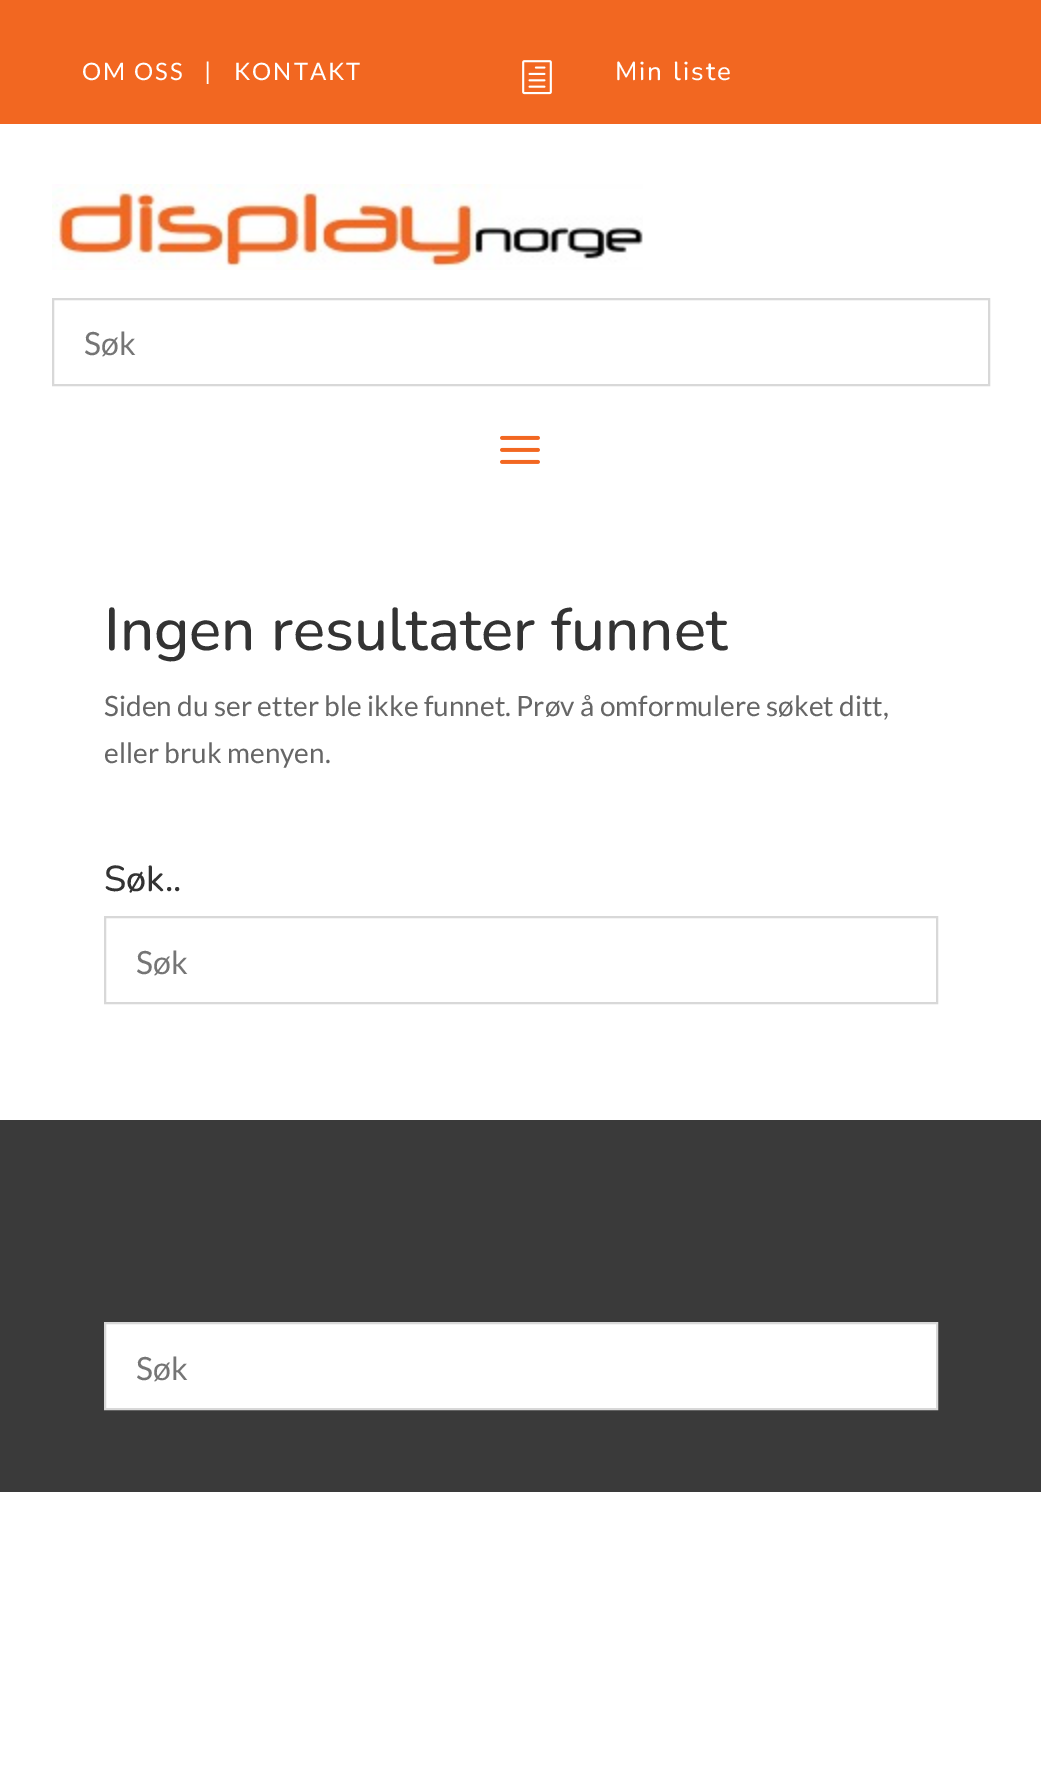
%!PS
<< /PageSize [1041 1766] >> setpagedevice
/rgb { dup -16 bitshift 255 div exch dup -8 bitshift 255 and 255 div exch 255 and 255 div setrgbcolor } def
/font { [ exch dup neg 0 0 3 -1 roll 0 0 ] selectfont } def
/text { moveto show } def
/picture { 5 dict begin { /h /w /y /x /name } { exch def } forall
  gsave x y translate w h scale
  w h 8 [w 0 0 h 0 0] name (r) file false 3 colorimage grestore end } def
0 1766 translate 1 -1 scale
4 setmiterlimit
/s1 { /Lato-Regular 32 font 16#757575 rgb } def
/s2 { /Nunito-Medium 60 font 16#333333 rgb } def
/s3 { /Lato-Regular 28 font 16#666666 rgb } def
/s4 { /Nunito-Medium 36 font 16#333333 rgb } def
16#FFFFFF rgb
0 0 1041 1766 rectfill
16#F26721 rgb
0 0 1041 124 rectfill
/Lato-Regular 24 font
16#FFFFFF rgb
82 80 moveto 2 0 (OM OSS) ashow
204 80 moveto 2 0 (|) ashow
234 80 moveto 2 0 (KONTAKT) ashow
(pic1.raw) 522 60 30 35 picture
/Nunito-Medium 26 font
615 80 moveto 2 0 (Min liste) ashow
(pic2.raw) 52 184 591 86 picture
16#D8D8D8 rgb
2 setlinewidth
53 299 936 86 rectstroke
s1
(Søk) 84 355 text
(pic3.raw) 500 435 40 29 picture
s2
(Ingen resultater funnet) 104 650 text
s3
(Siden du ser etter ble ikke funnet. Prøv å omformulere søket ditt,) 104 716 text
(eller bruk menyen.) 104 763 text
s4
(Søk..) 104 891 text
16#D8D8D8 rgb
105 917 832 86 rectstroke
s1
(Søk) 136 974 text
16#3A3A3A rgb
0 1120 1041 372 rectfill
16#FFFFFF rgb
105 1323 moveto 937 1323 lineto 937 1409 lineto 105 1409 lineto closepath gsave fill grestore
16#D8D8D8 rgb
stroke
s1
(Søk) 136 1380 text
showpage
